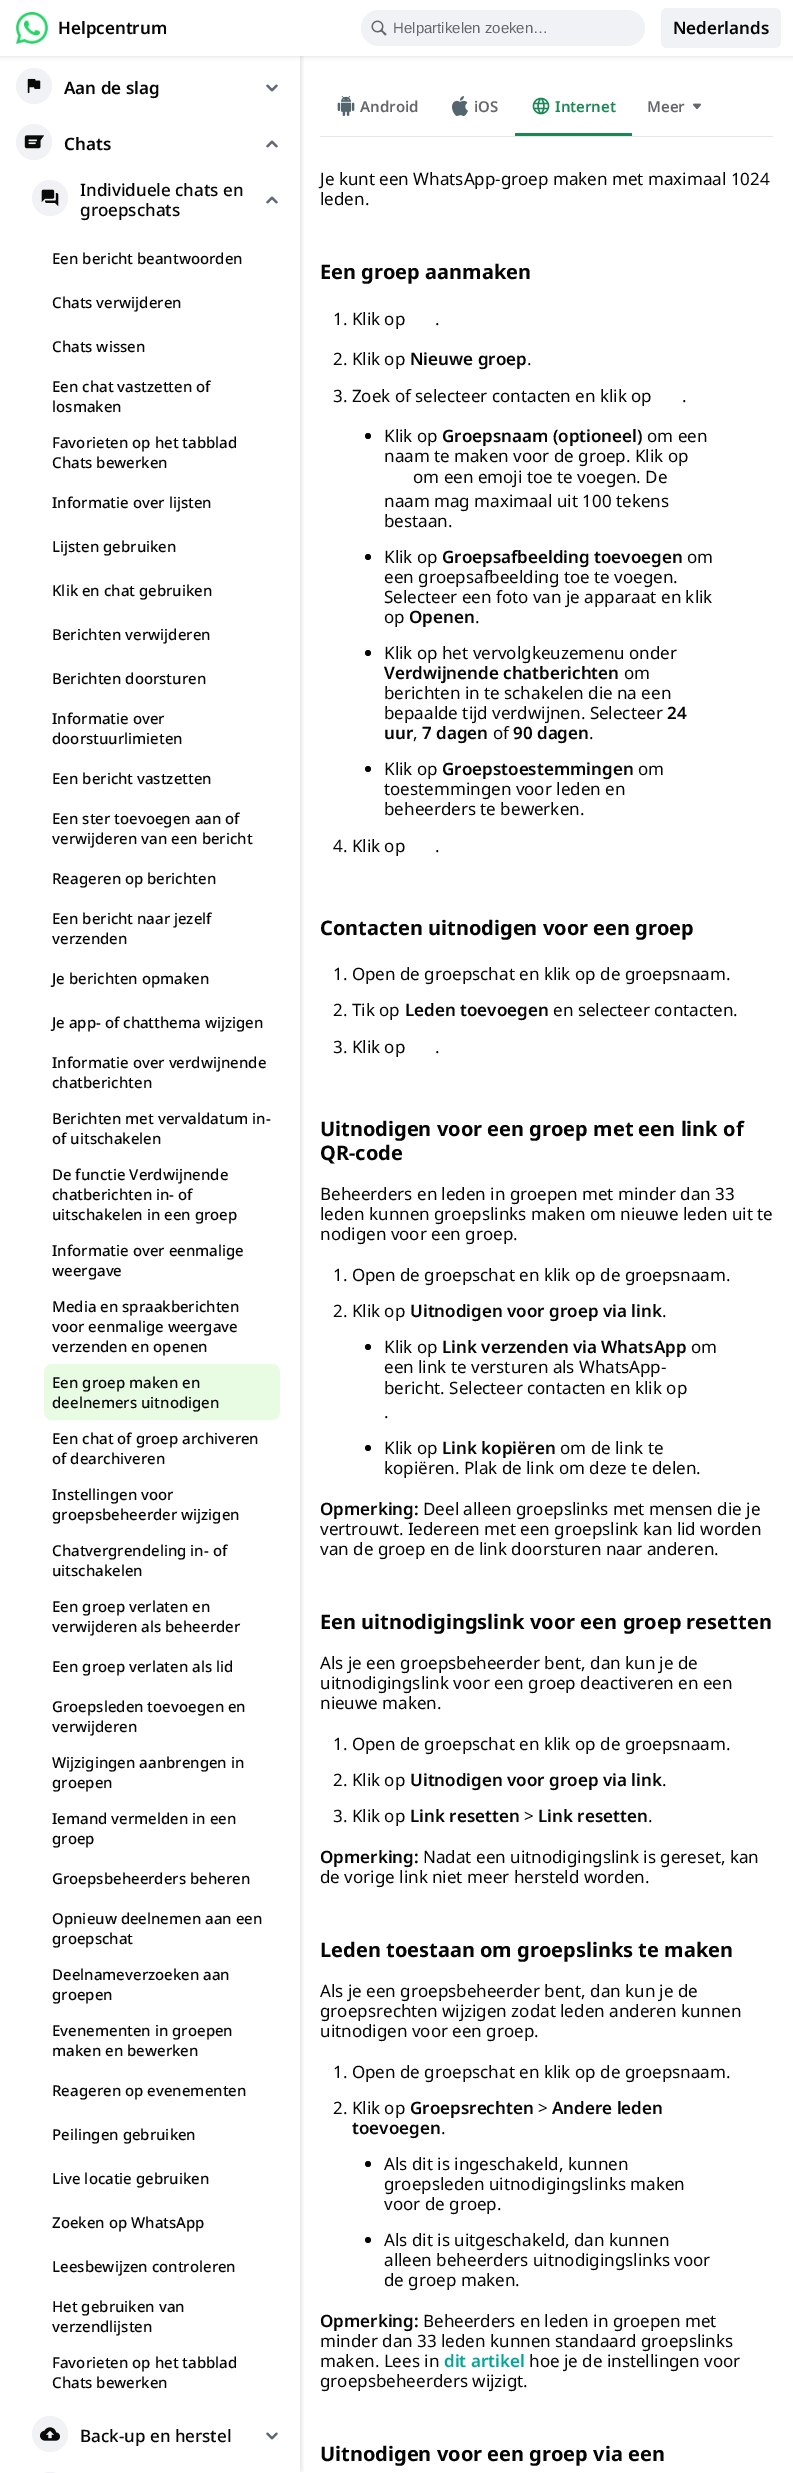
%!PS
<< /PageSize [793 2473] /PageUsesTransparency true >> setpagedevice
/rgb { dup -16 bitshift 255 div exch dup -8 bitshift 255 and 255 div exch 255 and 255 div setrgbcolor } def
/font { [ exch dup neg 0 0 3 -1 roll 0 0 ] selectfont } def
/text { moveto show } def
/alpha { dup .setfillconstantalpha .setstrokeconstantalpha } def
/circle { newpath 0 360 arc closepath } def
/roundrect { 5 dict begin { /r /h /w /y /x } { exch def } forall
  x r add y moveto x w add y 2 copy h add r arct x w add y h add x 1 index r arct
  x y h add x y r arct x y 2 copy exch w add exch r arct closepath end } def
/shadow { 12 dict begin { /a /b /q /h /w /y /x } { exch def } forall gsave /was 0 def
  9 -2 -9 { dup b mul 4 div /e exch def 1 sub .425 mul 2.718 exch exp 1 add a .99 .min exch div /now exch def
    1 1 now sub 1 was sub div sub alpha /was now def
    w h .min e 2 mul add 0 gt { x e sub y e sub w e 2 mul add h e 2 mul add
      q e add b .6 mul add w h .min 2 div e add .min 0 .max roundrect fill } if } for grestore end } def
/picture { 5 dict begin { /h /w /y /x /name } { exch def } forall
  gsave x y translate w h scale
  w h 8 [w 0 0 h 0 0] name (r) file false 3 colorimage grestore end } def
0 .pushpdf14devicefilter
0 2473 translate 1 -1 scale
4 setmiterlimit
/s1 { /NotoSans-SemiBold 17 font 16#050505 rgb } def
/s2 { /LiberationSans-Regular 15 font 16#65676B rgb } def
/s3 { /NotoSans-Medium 17 font 16#050505 rgb } def
/s4 { /NotoSans-Medium 15 font 16#050505 rgb } def
/s5 { /NotoSans-SemiBold 15 font 16#65676B rgb } def
/s6 { /NotoSans-SemiBold 15 font 16#1B8755 rgb } def
/s7 { /NotoSans-Regular 17 font 16#050505 rgb } def
/s8 { /NotoSans-Bold 20 font 16#050505 rgb } def
/s9 { /NotoSans-SemiBold 17 font 16#02A698 rgb } def
16#FFFFFF rgb
0 0 793 2473 rectfill
16#000000 rgb
0 1 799 56 0 2 0.1 shadow
gsave
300 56 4 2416 rectclip
6 2 296 2469 0 2 0.1 shadow
grestore
16#FFFFFF rgb
0 0 793 56 rectfill
(pic1.raw) 16 12 32 32 picture
s1
(Helpcentrum) 58 34 text
16#F0F2F5 rgb
361 10 284 36 18 roundrect fill
(pic2.raw) 371 20 16 16 picture
s2
(Helpartikelen zoeken…) 393 33 text
16#F0F2F5 rgb
661 8 120 40 6 roundrect fill
s1
(Nederlands) 673 34 text
16#F0F2F5 rgb
34 86 18 circle fill
(pic3.raw) 27 78 14 16 picture
s1
(Aan de slag) 64 94 text
(pic4.raw) 266 84 12 8 picture
16#F0F2F5 rgb
34 142 18 circle fill
(pic5.raw) 24 135 20 14 picture
s1
(Chats) 64 150 text
(pic6.raw) 266 140 12 8 picture
16#F0F2F5 rgb
50 198 18 circle fill
(pic7.raw) 41 189 18 18 picture
s3
(Individuele chats en) 80 196 text
(groepschats) 80 216 text
(pic6.raw) 266 196 12 8 picture
s4
(Een bericht beantwoorden) 52 264 text
(Chats verwijderen) 52 308 text
(Chats wissen) 52 352 text
(Een chat vastzetten of) 52 392 text
(losmaken) 52 412 text
(Favorieten op het tabblad) 52 448 text
(Chats bewerken) 52 468 text
(Informatie over lijsten) 52 508 text
(Lijsten gebruiken) 52 552 text
(Klik en chat gebruiken) 52 596 text
(Berichten verwijderen) 52 640 text
(Berichten doorsturen) 52 684 text
(Informatie over) 52 724 text
(doorstuurlimieten) 52 744 text
(Een bericht vastzetten) 52 784 text
(Een ster toevoegen aan of) 52 824 text
(verwijderen van een bericht) 52 844 text
(Reageren op berichten) 52 884 text
(Een bericht naar jezelf) 52 924 text
(verzenden) 52 944 text
(Je berichten opmaken) 52 984 text
(Je app- of chatthema wijzigen) 52 1028 text
(Informatie over verdwijnende) 52 1068 text
(chatberichten) 52 1088 text
(Berichten met vervaldatum in-) 52 1124 text
(of uitschakelen) 52 1144 text
(De functie Verdwijnende) 52 1180 text
(chatberichten in- of) 52 1200 text
(uitschakelen in een groep) 52 1220 text
(Informatie over eenmalige) 52 1256 text
(weergave) 52 1276 text
(Media en spraakberichten) 52 1312 text
(voor eenmalige weergave) 52 1332 text
(verzenden en openen) 52 1352 text
16#E7FCE3 rgb
44 1364 236 56 8 roundrect fill
s4
(Een groep maken en) 52 1388 text
(deelnemers uitnodigen) 52 1408 text
(Een chat of groep archiveren) 52 1444 text
(of dearchiveren) 52 1464 text
(Instellingen voor) 52 1500 text
(groepsbeheerder wijzigen) 52 1520 text
(Chatvergrendeling in- of) 52 1556 text
(uitschakelen) 52 1576 text
(Een groep verlaten en) 52 1612 text
(verwijderen als beheerder) 52 1632 text
(Een groep verlaten als lid) 52 1672 text
(Groepsleden toevoegen en) 52 1712 text
(verwijderen) 52 1732 text
(Wijzigingen aanbrengen in) 52 1768 text
(groepen) 52 1788 text
(Iemand vermelden in een) 52 1824 text
(groep) 52 1844 text
(Groepsbeheerders beheren) 52 1884 text
(Opnieuw deelnemen aan een) 52 1924 text
(groepschat) 52 1944 text
(Deelnameverzoeken aan) 52 1980 text
(groepen) 52 2000 text
(Evenementen in groepen) 52 2036 text
(maken en bewerken) 52 2056 text
(Reageren op evenementen) 52 2096 text
(Peilingen gebruiken) 52 2140 text
(Live locatie gebruiken) 52 2184 text
(Zoeken op WhatsApp) 52 2228 text
(Leesbewijzen controleren) 52 2272 text
(Het gebruiken van) 52 2312 text
(verzendlijsten) 52 2332 text
(Favorieten op het tabblad) 52 2368 text
(Chats bewerken) 52 2388 text
16#F0F2F5 rgb
50 2434 18 circle fill
(pic8.raw) 40 2427 20 14 picture
s3
(Back-up en herstel) 80 2442 text
(pic4.raw) 266 2432 12 8 picture
16#F0F2F5 rgb
50 2472 moveto 60 2472 68 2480 68 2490 curveto 68 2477 lineto 32 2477 lineto 32 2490 lineto 32 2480 40 2472 50 2472 curveto closepath fill
16#E6E6E6 rgb
320 136 453 1 rectfill
(pic9.raw) 337 96 18 20 picture
s5
(Android) 360 112 text
(pic10.raw) 452 96 16 20 picture
(iOS) 474 112 text
(pic11.raw) 532 97 18 18 picture
s6
(Internet) 555 112 text
516 133 moveto 631 133 lineto 631.5 133 632 133.5 632 134 curveto 632 136 lineto 515 136 lineto 515 134 lineto 515 133.5 515.5 133 516 133 curveto closepath fill
s5
(Meer) 647 112 text
(pic12.raw) 693 103 8 7 picture
s7
(Je kunt een WhatsApp-groep maken met maximaal 1024) 320 185 text
(leden.) 320 205 text
s8
(Een groep aanmaken) 320 279 text
s7
(1. Klik op) 333 325 text
(.) 435 325 text
(2. Klik op) 333 365 text
s1
(Nieuwe groep) 410 365 text
s7
(.) 527 365 text
(3. Zoek of selecteer contacten en klik op) 333 402 text
(.) 682 402 text
368 436 3 circle fill
(Klik op) 384 442 text
s1
(Groepsnaam \(optioneel\)) 442 442 text
s7
(om een) 647 442 text
(naam te maken voor de groep. Klik op) 384 462 text
(om een emoji toe te voegen. De) 413 483 text
(naam mag maximaal uit 100 tekens) 384 507 text
(bestaan.) 384 527 text
368 557 3 circle fill
(Klik op) 384 563 text
s1
(Groepsafbeelding toevoegen) 442 563 text
s7
(om) 687 563 text
(een groepsafbeelding toe te voegen.) 384 583 text
(Selecteer een foto van je apparaat en klik) 384 603 text
(op) 384 623 text
s1
(Openen) 409 623 text
s7
(.) 475 623 text
368 653 3 circle fill
(Klik op het vervolgkeuzemenu onder) 384 659 text
s1
(Verdwijnende chatberichten) 384 679 text
s7
(om) 624 679 text
(berichten in te schakelen die na een) 384 699 text
(bepaalde tijd verdwijnen. Selecteer) 384 719 text
s1
(24) 667 719 text
(uur) 384 739 text
s7
(,) 413 739 text
s1
(7 dagen) 422 739 text
s7
(of) 493 739 text
s1
(90 dagen) 513 739 text
s7
(.) 589 739 text
368 769 3 circle fill
(Klik op) 384 775 text
s1
(Groepstoestemmingen) 442 775 text
s7
(om) 638 775 text
(toestemmingen voor leden en) 384 795 text
(beheerders te bewerken.) 384 815 text
(4. Klik op) 333 852 text
(.) 435 852 text
s8
(Contacten uitnodigen voor een groep) 320 935 text
s7
(1. Open de groepschat en klik op de groepsnaam.) 333 980 text
(2. Tik op) 333 1016 text
s1
(Leden toevoegen) 405 1016 text
s7
(en selecteer contacten.) 553 1016 text
(3. Klik op) 333 1053 text
(.) 435 1053 text
s8
(Uitnodigen voor een groep met een link of) 320 1136 text
(QR-code) 320 1160 text
s7
(Beheerders en leden in groepen met minder dan 33) 320 1200 text
(leden kunnen groepslinks maken om nieuwe leden uit te) 320 1220 text
(nodigen voor een groep.) 320 1240 text
(1. Open de groepschat en klik op de groepsnaam.) 333 1281 text
(2. Klik op) 333 1317 text
s1
(Uitnodigen voor groep via link) 410 1317 text
s7
(.) 662 1317 text
368 1347 3 circle fill
(Klik op) 384 1353 text
s1
(Link verzenden via WhatsApp) 442 1353 text
s7
(om) 691 1353 text
(een link te versturen als WhatsApp-) 384 1373 text
(bericht. Selecteer contacten en klik op) 384 1394 text
(.) 384 1418 text
368 1448 3 circle fill
(Klik op) 384 1454 text
s1
(Link kopiëren) 442 1454 text
s7
(om de link te) 560 1454 text
(kopiëren. Plak de link om deze te delen.) 384 1474 text
s1
(Opmerking:) 320 1515 text
s7
(Deel alleen groepslinks met mensen die je) 423 1515 text
(vertrouwt. Iedereen met een groepslink kan lid worden) 320 1535 text
(van de groep en de link doorsturen naar anderen.) 320 1555 text
s8
(Een uitnodigingslink voor een groep resetten) 320 1629 text
s7
(Als je een groepsbeheerder bent, dan kun je de) 320 1669 text
(uitnodigingslink voor een groep deactiveren en een) 320 1689 text
(nieuwe maken.) 320 1709 text
(1. Open de groepschat en klik op de groepsnaam.) 333 1750 text
(2. Klik op) 333 1786 text
s1
(Uitnodigen voor groep via link) 410 1786 text
s7
(.) 662 1786 text
(3. Klik op) 333 1822 text
s1
(Link resetten) 410 1822 text
s7
(>) 524 1822 text
s1
(Link resetten) 538 1822 text
s7
(.) 648 1822 text
s1
(Opmerking:) 320 1863 text
s7
(Nadat een uitnodigingslink is gereset, kan) 423 1863 text
(de vorige link niet meer hersteld worden.) 320 1883 text
s8
(Leden toestaan om groepslinks te maken) 320 1957 text
s7
(Als je een groepsbeheerder bent, dan kun je de) 320 1997 text
(groepsrechten wijzigen zodat leden anderen kunnen) 320 2017 text
(uitnodigen voor een groep.) 320 2037 text
(1. Open de groepschat en klik op de groepsnaam.) 333 2078 text
(2. Klik op) 333 2114 text
s1
(Groepsrechten) 410 2114 text
s7
(>) 538 2114 text
s1
(Andere leden) 552 2114 text
(toevoegen) 352 2134 text
s7
(.) 441 2134 text
368 2164 3 circle fill
(Als dit is ingeschakeld, kunnen) 384 2170 text
(groepsleden uitnodigingslinks maken) 384 2190 text
(voor de groep.) 384 2210 text
368 2240 3 circle fill
(Als dit is uitgeschakeld, dan kunnen) 384 2246 text
(alleen beheerders uitnodigingslinks voor) 384 2266 text
(de groep maken.) 384 2286 text
s1
(Opmerking:) 320 2327 text
s7
(Beheerders en leden in groepen met) 423 2327 text
(minder dan 33 leden kunnen standaard groepslinks) 320 2347 text
(maken. Lees in) 320 2367 text
s9
(dit artikel) 444 2367 text
s7
(hoe je de instellingen voor) 529 2367 text
(groepsbeheerders wijzigt.) 320 2387 text
s8
(Uitnodigen voor een groep via een) 320 2461 text
.poppdf14devicefilter showpage
